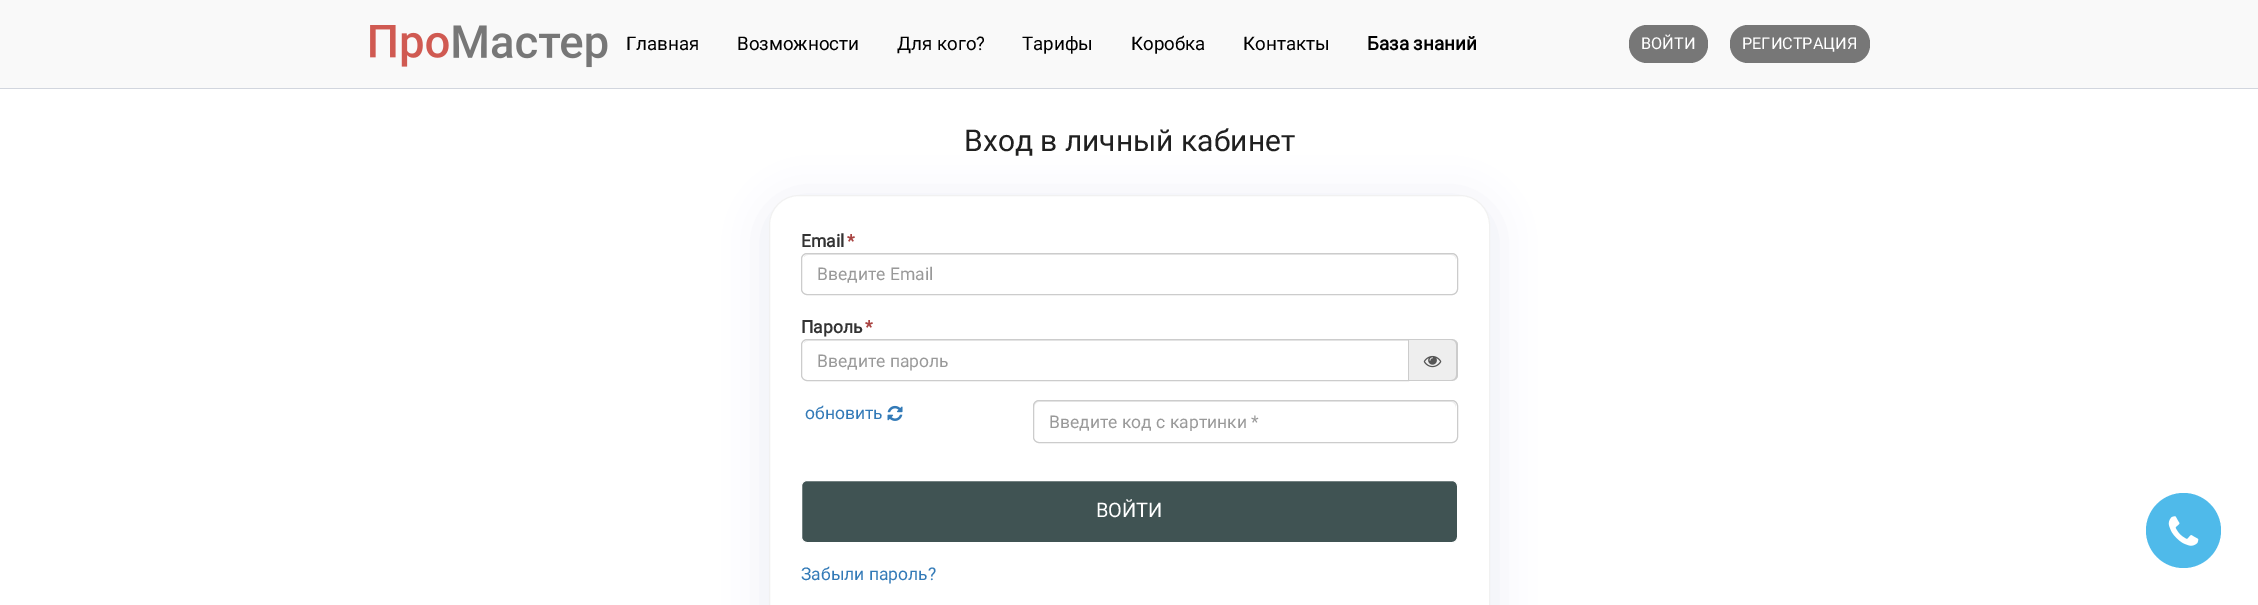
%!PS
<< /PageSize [2258 605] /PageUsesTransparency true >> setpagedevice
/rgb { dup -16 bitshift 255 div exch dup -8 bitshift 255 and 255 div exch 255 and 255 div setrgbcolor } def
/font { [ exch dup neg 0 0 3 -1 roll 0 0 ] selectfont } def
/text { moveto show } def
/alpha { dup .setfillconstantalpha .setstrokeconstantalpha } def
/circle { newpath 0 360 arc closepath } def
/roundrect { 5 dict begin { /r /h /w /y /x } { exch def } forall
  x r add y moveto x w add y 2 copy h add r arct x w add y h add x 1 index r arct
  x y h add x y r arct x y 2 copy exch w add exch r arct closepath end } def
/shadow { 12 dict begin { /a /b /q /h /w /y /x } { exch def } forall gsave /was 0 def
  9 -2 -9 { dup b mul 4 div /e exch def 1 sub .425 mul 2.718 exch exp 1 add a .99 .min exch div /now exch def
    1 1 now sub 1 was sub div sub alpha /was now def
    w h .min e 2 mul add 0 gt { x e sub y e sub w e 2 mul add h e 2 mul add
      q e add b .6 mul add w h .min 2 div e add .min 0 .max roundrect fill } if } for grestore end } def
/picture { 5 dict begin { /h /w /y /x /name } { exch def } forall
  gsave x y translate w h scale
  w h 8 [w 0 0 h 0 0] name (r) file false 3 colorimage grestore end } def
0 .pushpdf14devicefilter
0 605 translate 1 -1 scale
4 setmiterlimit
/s1 { /Roboto-Regular 18.75 font 16#000000 rgb } def
/s2 { /Roboto-Bold 18.75 font 16#000000 rgb } def
/s3 { /Roboto-Regular 16.25 font 16#FFFFFF rgb } def
/s4 { /Roboto-Regular 30 font 16#202020 rgb } def
/s5 { /Roboto-Bold 17.5 font 16#333333 rgb } def
/s6 { /Roboto-Bold 17.5 font 16#A94442 rgb } def
/s7 { /Roboto-Regular 17.5 font 16#999999 rgb } def
/s8 { /Roboto-Regular 17.5 font 16#337AB7 rgb } def
/s9 { /Roboto-Regular 20 font 16#FFFFFF rgb } def
16#FFFFFF rgb
0 0 2258 605 rectfill
16#F9F9F9 rgb
0 0 2258 88 rectfill
16#D2D6DE rgb
0 88 2258 1 rectfill
(pic1.raw) 370 25 238 43 picture
s1
(Главная) 626 50 text
(Возможности) 737 50 text
(Для кого?) 897 50 text
(Тарифы) 1022 50 text
(Коробка) 1131 50 text
(Контакты) 1243 50 text
s2
(База знаний) 1367 50 text
16#777777 rgb
1629 25 79 38 18 roundrect fill
s3
(ВОЙТИ) 1641 49 text
16#777777 rgb
1730 25 140 38 18 roundrect fill
s3
(РЕГИСТРАЦИЯ) 1742 49 text
16#45589D rgb
764 198 731 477 35 19 0.1 shadow
s4
(Вход в личный кабинет) 964 151 text
16#FFFFFF rgb
769.5 195.5 720 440 29.5 roundrect gsave fill grestore
16#F1F1F1 rgb
stroke
s5
(Email) 801 247 text
s6
(*) 847 247 text
16#ECECEC rgb
808 255 moveto 1451 255 lineto 1454 255 1456 257 1456 260 curveto 1456 259 lineto 1456 256 1454 254 1451 254 curveto 808 254 lineto 806 254 804 255 804 257 curveto 805 256 806 255 808 255 curveto closepath fill
16#CCCCCC rgb
801.5 253.5 656 41 5.5 roundrect stroke
s7
(Введите Email) 817 280 text
s5
(Пароль) 801 333 text
s6
(*) 865 333 text
16#ECECEC rgb
808 341 moveto 1408 341 lineto 1408 340 lineto 808 340 lineto 806 340 804 341 804 343 curveto 805 342 806 341 808 341 curveto closepath fill
16#CCCCCC rgb
807 339.5 moveto 1408.5 339.5 lineto 1408.5 380.5 lineto 807 380.5 lineto 804 380.5 801.5 378 801.5 375 curveto 801.5 345 lineto 801.5 342 804 339.5 807 339.5 curveto closepath stroke
s7
(Введите пароль) 817 367 text
16#EEEEEE rgb
1409 339 moveto 1452 339 lineto 1455.5 339 1458 341.5 1458 345 curveto 1458 375 lineto 1458 378.5 1455.5 381 1452 381 curveto 1409 381 lineto closepath fill
16#CCCCCC rgb
1409 339 moveto 1451 339 lineto 1455 339 1458 342 1458 345 curveto 1458 375 lineto 1458 378 1455 381 1451 381 curveto 1409 381 lineto closepath 1409 340 moveto 1451 340 lineto 1454 340 1456 342 1456 345 curveto 1456 375 lineto 1456 378 1454 380 1451 380 curveto 1409 380 lineto closepath eofill
(pic2.raw) 1423 355 19 13 picture
s8
(обновить) 805 419 text
(pic3.raw) 887 405 16 16 picture
16#ECECEC rgb
1039 402 moveto 1451 402 lineto 1454 402 1456 405 1456 408 curveto 1456 406 lineto 1456 403 1454 401 1451 401 curveto 1039 401 lineto 1036 401 1034 403 1034 406 curveto 1034 408 lineto 1034 405 1036 402 1039 402 curveto closepath fill
16#CCCCCC rgb
1033.5 400.5 424 42 5.5 roundrect stroke
gsave
1049 411 392 20 rectclip
s7
(Введите код с картинки *) 1049 428 text
grestore
16#405353 rgb
801.5 480.5 656 62 5.5 roundrect gsave fill grestore
16#FFFFFF rgb
stroke
s9
(ВОЙТИ) 1096 517 text
s8
(Забыли пароль?) 801 580 text
16#4FBAEA rgb
2183.5 530.5 37.5 circle fill
(pic4.raw) 2168 516 31 30 picture
.poppdf14devicefilter showpage
